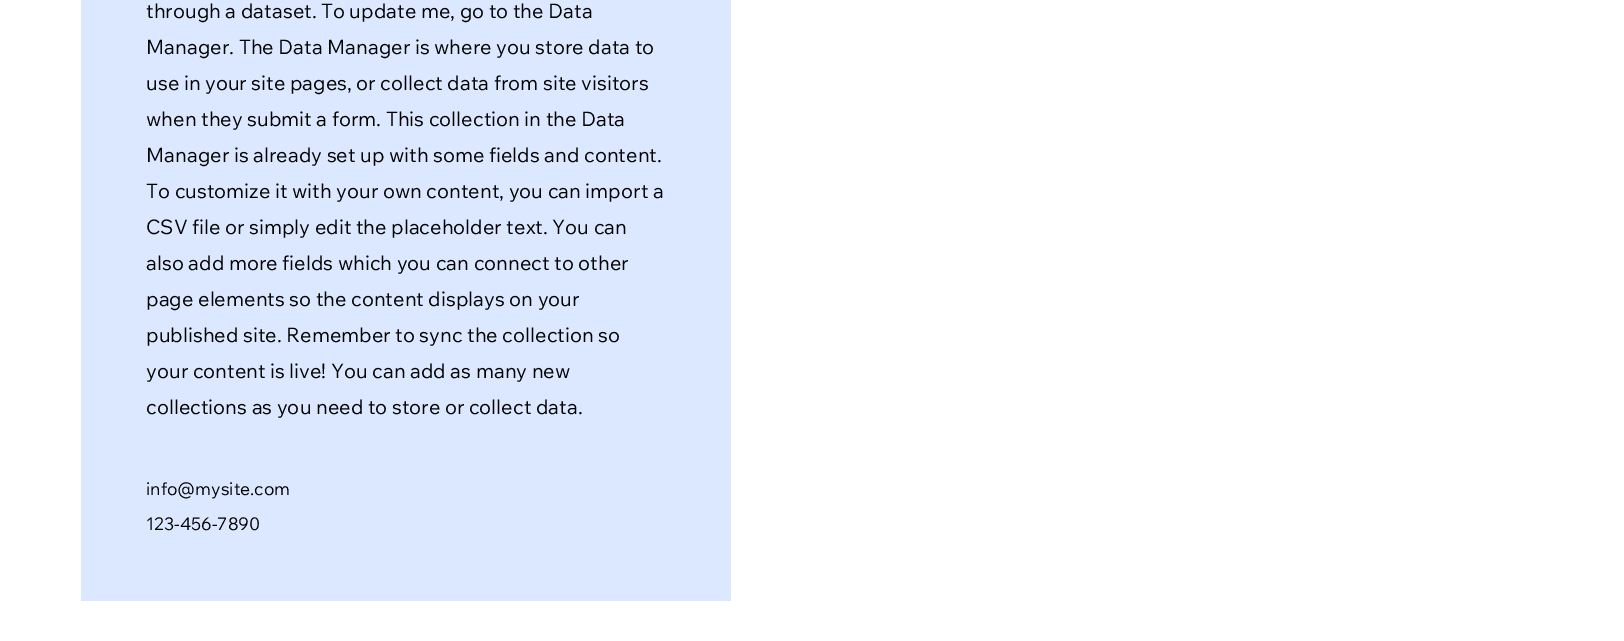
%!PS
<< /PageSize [1624 641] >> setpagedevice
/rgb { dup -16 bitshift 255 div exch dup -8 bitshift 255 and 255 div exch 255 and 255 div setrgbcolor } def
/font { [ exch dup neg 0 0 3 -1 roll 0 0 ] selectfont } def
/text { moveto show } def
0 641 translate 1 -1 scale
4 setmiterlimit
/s1 { /WixMadeforText-Regular 20 font 16#000000 rgb } def
/s2 { /WixMadeforText-Regular 17.5 font 16#000000 rgb } def
16#FFFFFF rgb
0 0 1624 641 rectfill
16#DCE8FF rgb
81 0 650 601 rectfill
s1
(through a dataset. To update me, go to the Data) 146 18 text
(Manager. The Data Manager is where you store data to) 146 54 text
(use in your site pages, or collect data from site visitors) 146 90 text
(when they submit a form. This collection in the Data) 146 126 text
(Manager is already set up with some fields and content.) 146 162 text
(To customize it with your own content, you can import a) 146 198 text
(CSV file or simply edit the placeholder text. You can) 146 234 text
(also add more fields which you can connect to other) 146 270 text
(page elements so the content displays on your) 146 306 text
(published site. Remember to sync the collection so) 146 342 text
(your content is live! You can add as many new) 146 378 text
(collections as you need to store or collect data.) 146 414 text
s2
(info@mysite.com) 146 495 text
(123-456-7890) 146 530 text
showpage
